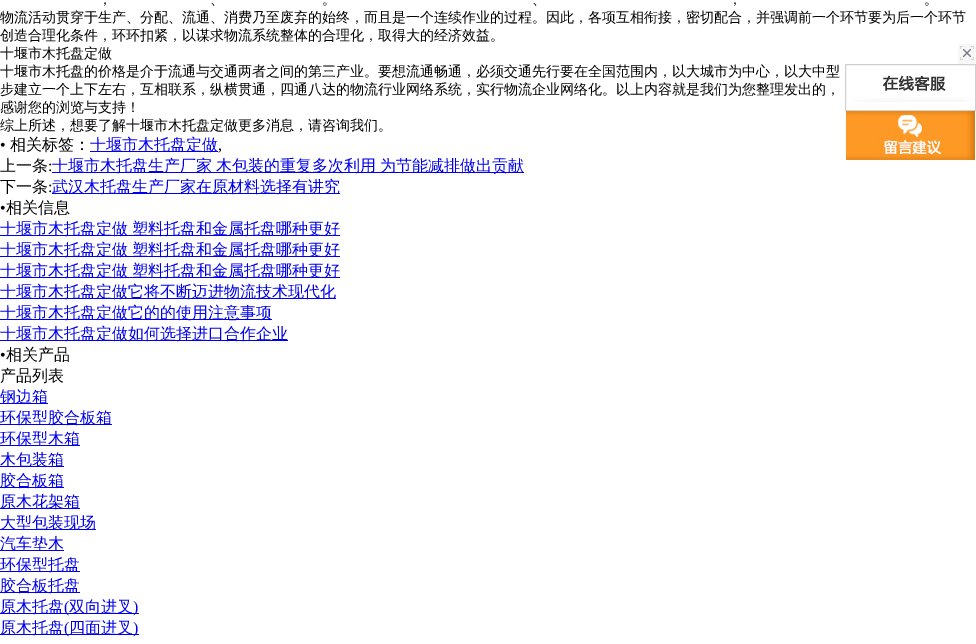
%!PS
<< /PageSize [976 644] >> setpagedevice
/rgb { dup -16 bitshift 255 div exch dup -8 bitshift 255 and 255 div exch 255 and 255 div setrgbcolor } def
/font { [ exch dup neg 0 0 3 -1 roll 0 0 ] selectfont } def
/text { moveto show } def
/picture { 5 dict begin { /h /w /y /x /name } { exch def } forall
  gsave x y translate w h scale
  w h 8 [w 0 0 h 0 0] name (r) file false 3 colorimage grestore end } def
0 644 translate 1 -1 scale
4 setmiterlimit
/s1 { /WenQuanYiZenHei-Medium 14 font 16#000000 rgb } def
/s2 { /LiberationSerif-Regular 16 font 16#000000 rgb } def
/s3 { /WenQuanYiZenHei-Medium 16 font 16#000000 rgb } def
/s4 { /WenQuanYiZenHei-Medium 16 font 16#0000EE rgb } def
/s5 { /LiberationSerif-Regular 16 font 16#0000EE rgb } def
16#FFFFFF rgb
0 0 976 644 rectfill
s1
(，) 98 4 text
(、) 210 4 text
(。) 322 4 text
(、) 532 4 text
(，) 728 4 text
(。) 924 4 text
(物流活动贯穿于生产、分配、流通、消费乃至废弃的始终，而且是一个连续作业的过程。因此，各项互相衔接，密切配合，并强调前一个环节要为后一个环节) 0 22 text
(创造合理化条件，环环扣紧，以谋求物流系统整体的合理化，取得大的经济效益。) 0 40 text
(十堰市木托盘定做) 0 58 text
(十堰市木托盘的价格是介于流通与交通两者之间的第三产业。要想流通畅通，必须交通先行要在全国范围内，以大城市为中心，以大中型) 0 76 text
(步建立一个上下左右，互相联系，纵横贯通，四通八达的物流行业网络系统，实行物流企业网络化。以上内容就是我们为您整理发出的，) 0 94 text
(感谢您的浏览与支持！) 0 112 text
(综上所述，想要了解十堰市木托盘定做更多消息，请咨询我们。) 0 130 text
s2
(•) 0 150 text
s3
(相关标签：) 10 150 text
16#0000EE rgb
90 151 128 1 rectfill
(十堰市木托盘定做) 90 150 text
s2
(,) 218 150 text
s3
(上一条) 0 171 text
s2
(:) 48 171 text
16#0000EE rgb
52 172 472 1 rectfill
/WenQuanYiZenHei-Medium 16 font
52 171 moveto -1 0 32 (十堰市木托盘生产厂家 木包装的重复多次利用 为节能减排做出贡献) widthshow
s3
(下一条) 0 192 text
s2
(:) 48 192 text
16#0000EE rgb
52 193 288 1 rectfill
s4
(武汉木托盘生产厂家在原材料选择有讲究) 52 192 text
s2
(•) 0 213 text
s3
(相关信息) 6 213 text
16#0000EE rgb
0 235 340 1 rectfill
0 234 moveto -1 0 32 (十堰市木托盘定做 塑料托盘和金属托盘哪种更好) widthshow
0 256 340 1 rectfill
0 255 moveto -1 0 32 (十堰市木托盘定做 塑料托盘和金属托盘哪种更好) widthshow
0 277 340 1 rectfill
0 276 moveto -1 0 32 (十堰市木托盘定做 塑料托盘和金属托盘哪种更好) widthshow
0 298 336 1 rectfill
(十堰市木托盘定做它将不断迈进物流技术现代化) 0 297 text
0 319 272 1 rectfill
(十堰市木托盘定做它的的使用注意事项) 0 318 text
0 340 288 1 rectfill
(十堰市木托盘定做如何选择进口合作企业) 0 339 text
s2
(•) 0 360 text
s3
(相关产品) 6 360 text
(产品列表) 0 381 text
16#0000EE rgb
0 403 48 1 rectfill
(钢边箱) 0 402 text
0 424 112 1 rectfill
(环保型胶合板箱) 0 423 text
0 445 80 1 rectfill
(环保型木箱) 0 444 text
0 466 64 1 rectfill
(木包装箱) 0 465 text
0 487 64 1 rectfill
(胶合板箱) 0 486 text
0 508 80 1 rectfill
(原木花架箱) 0 507 text
0 529 96 1 rectfill
(大型包装现场) 0 528 text
0 550 64 1 rectfill
(汽车垫木) 0 549 text
0 571 80 1 rectfill
(环保型托盘) 0 570 text
0 592 80 1 rectfill
(胶合板托盘) 0 591 text
0 613 139 1 rectfill
(原木托盘) 0 612 text
s5
(\() 64 612 text
s4
(双向进叉) 69 612 text
s5
(\)) 133 612 text
0 634 139 1 rectfill
s4
(原木托盘) 0 633 text
s5
(\() 64 633 text
s4
(四面进叉) 69 633 text
s5
(\)) 133 633 text
16#F7F7F7 rgb
958 44 18 20 rectfill
(pic1.raw) 960 46 14 14 picture
(pic2.raw) 853 75 117 27 picture
16#D1D1D1 rgb
845.5 64.5 130 46 rectstroke
(pic3.raw) 846 111 129 49 picture
showpage
